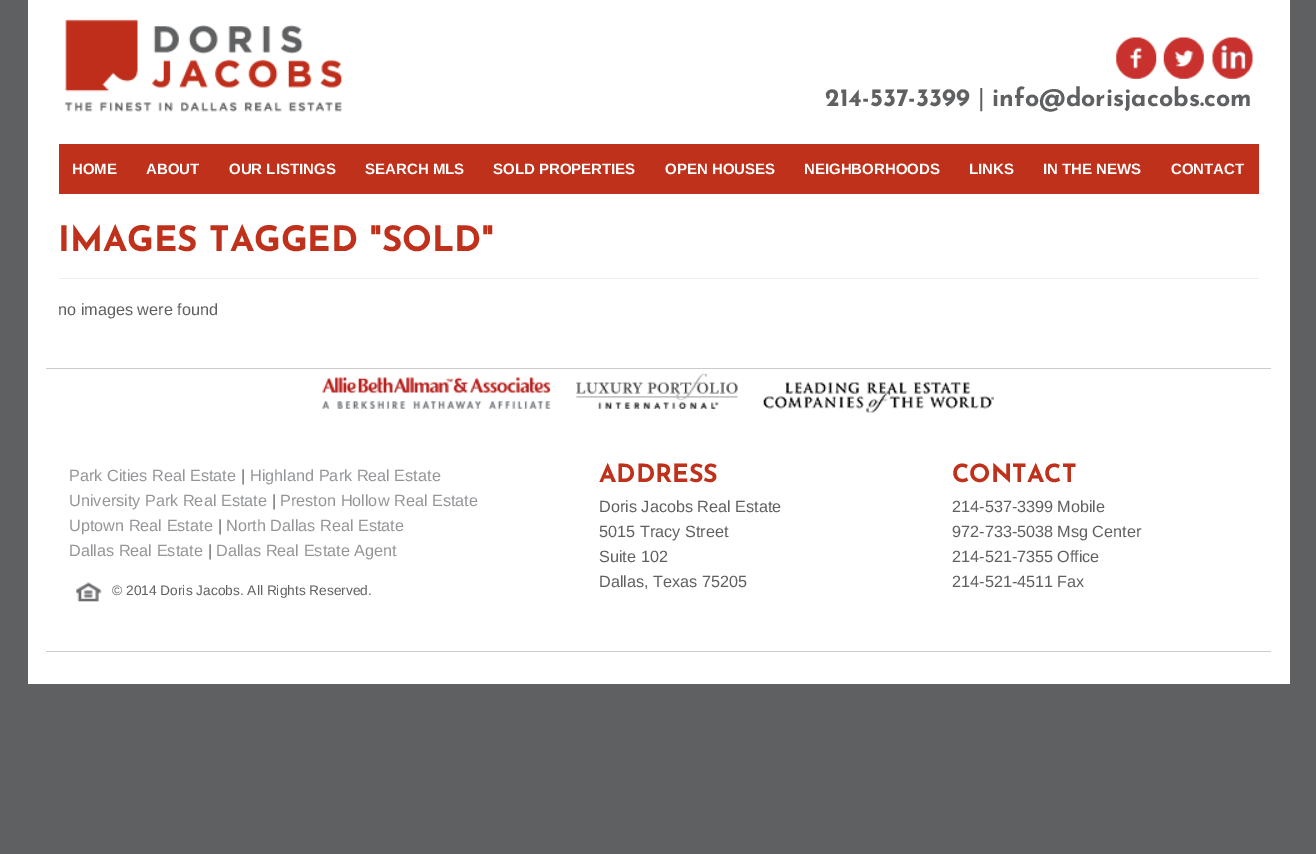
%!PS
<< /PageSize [1316 854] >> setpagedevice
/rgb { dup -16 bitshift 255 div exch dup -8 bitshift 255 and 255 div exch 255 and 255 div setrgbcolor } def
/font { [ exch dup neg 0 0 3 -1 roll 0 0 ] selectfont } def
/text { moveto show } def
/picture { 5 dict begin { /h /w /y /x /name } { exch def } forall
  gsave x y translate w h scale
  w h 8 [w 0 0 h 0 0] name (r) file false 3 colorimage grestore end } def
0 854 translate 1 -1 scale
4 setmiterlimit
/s1 { /JosefinSans-Bold 25 font 16#5F6062 rgb } def
/s2 { /LiberationSans-Regular 25 font 16#5F6062 rgb } def
/s3 { /LiberationSans-Bold 15 font 16#FFFFFF rgb } def
/s4 { /JosefinSans-Bold 35 font 16#BF311A rgb } def
/s5 { /LiberationSans-Regular 16.25 font 16#5F6062 rgb } def
/s6 { /LiberationSans-Regular 16.25 font 16#939598 rgb } def
/s7 { /LiberationSans-Regular 13.75 font 16#5F6062 rgb } def
/s8 { /JosefinSans-Bold 25 font 16#BF311A rgb } def
16#5F6062 rgb
0 0 1316 854 rectfill
16#FFFFFF rgb
28 0 1262 684 rectfill
(pic1.raw) 65 19 277 93 picture
(pic2.raw) 1116 37 41 42 picture
(pic3.raw) 1163 37 41 42 picture
(pic4.raw) 1212 37 41 42 picture
s1
(214-537-3399) 825 106 text
s2
(|) 978 106 text
s1
(info@dorisjacobs.com) 992 106 text
16#BF311A rgb
59 144 1200 50 rectfill
s3
(HOME) 72 174 text
(ABOUT) 146 174 text
(OUR LISTINGS) 229 174 text
(SEARCH MLS) 365 174 text
(SOLD PROPERTIES) 493 174 text
(OPEN HOUSES) 665 174 text
(NEIGHBORHOODS) 804 174 text
(LINKS) 969 174 text
(IN THE NEWS) 1043 174 text
(CONTACT) 1171 174 text
16#EEEEEE rgb
59 278 1200 1 rectfill
s4
(IMAGES TAGGED "SOLD") 58 251 text
s5
(no images were found) 58 315 text
16#CCCCCC rgb
46 368 1225 1 rectfill
(pic5.raw) 322 373 672 40 picture
s6
(Park Cities Real Estate) 69 481 text
s5
(|) 241 481 text
s6
(Highland Park Real Estate) 250 481 text
(University Park Real Estate) 69 506 text
s5
(|) 272 506 text
s6
(Preston Hollow Real Estate) 280 506 text
(Uptown Real Estate) 69 531 text
s5
(|) 218 531 text
s6
(North Dallas Real Estate) 226 531 text
(Dallas Real Estate) 69 556 text
s5
(|) 208 556 text
s6
(Dallas Real Estate Agent) 216 556 text
(pic6.raw) 76 582 26 20 picture
s7
(© 2014 Doris Jacobs. All Rights Reserved.) 112 595 text
s8
(ADDRESS) 599 482 text
s5
(Doris Jacobs Real Estate) 599 512 text
(5015 Tracy Street) 599 537 text
(Suite 102) 599 562 text
(Dallas, Texas 75205) 599 587 text
s8
(CONTACT) 952 482 text
s5
(214-537-3399) 952 512 text
(Mobile) 1057 512 text
(972-733-5038) 952 537 text
(Msg Center) 1057 537 text
(214-521-7355) 952 562 text
(Office) 1057 562 text
(214-521-4511) 952 587 text
(Fax) 1057 587 text
16#CCCCCC rgb
46 651 1225 1 rectfill
showpage
